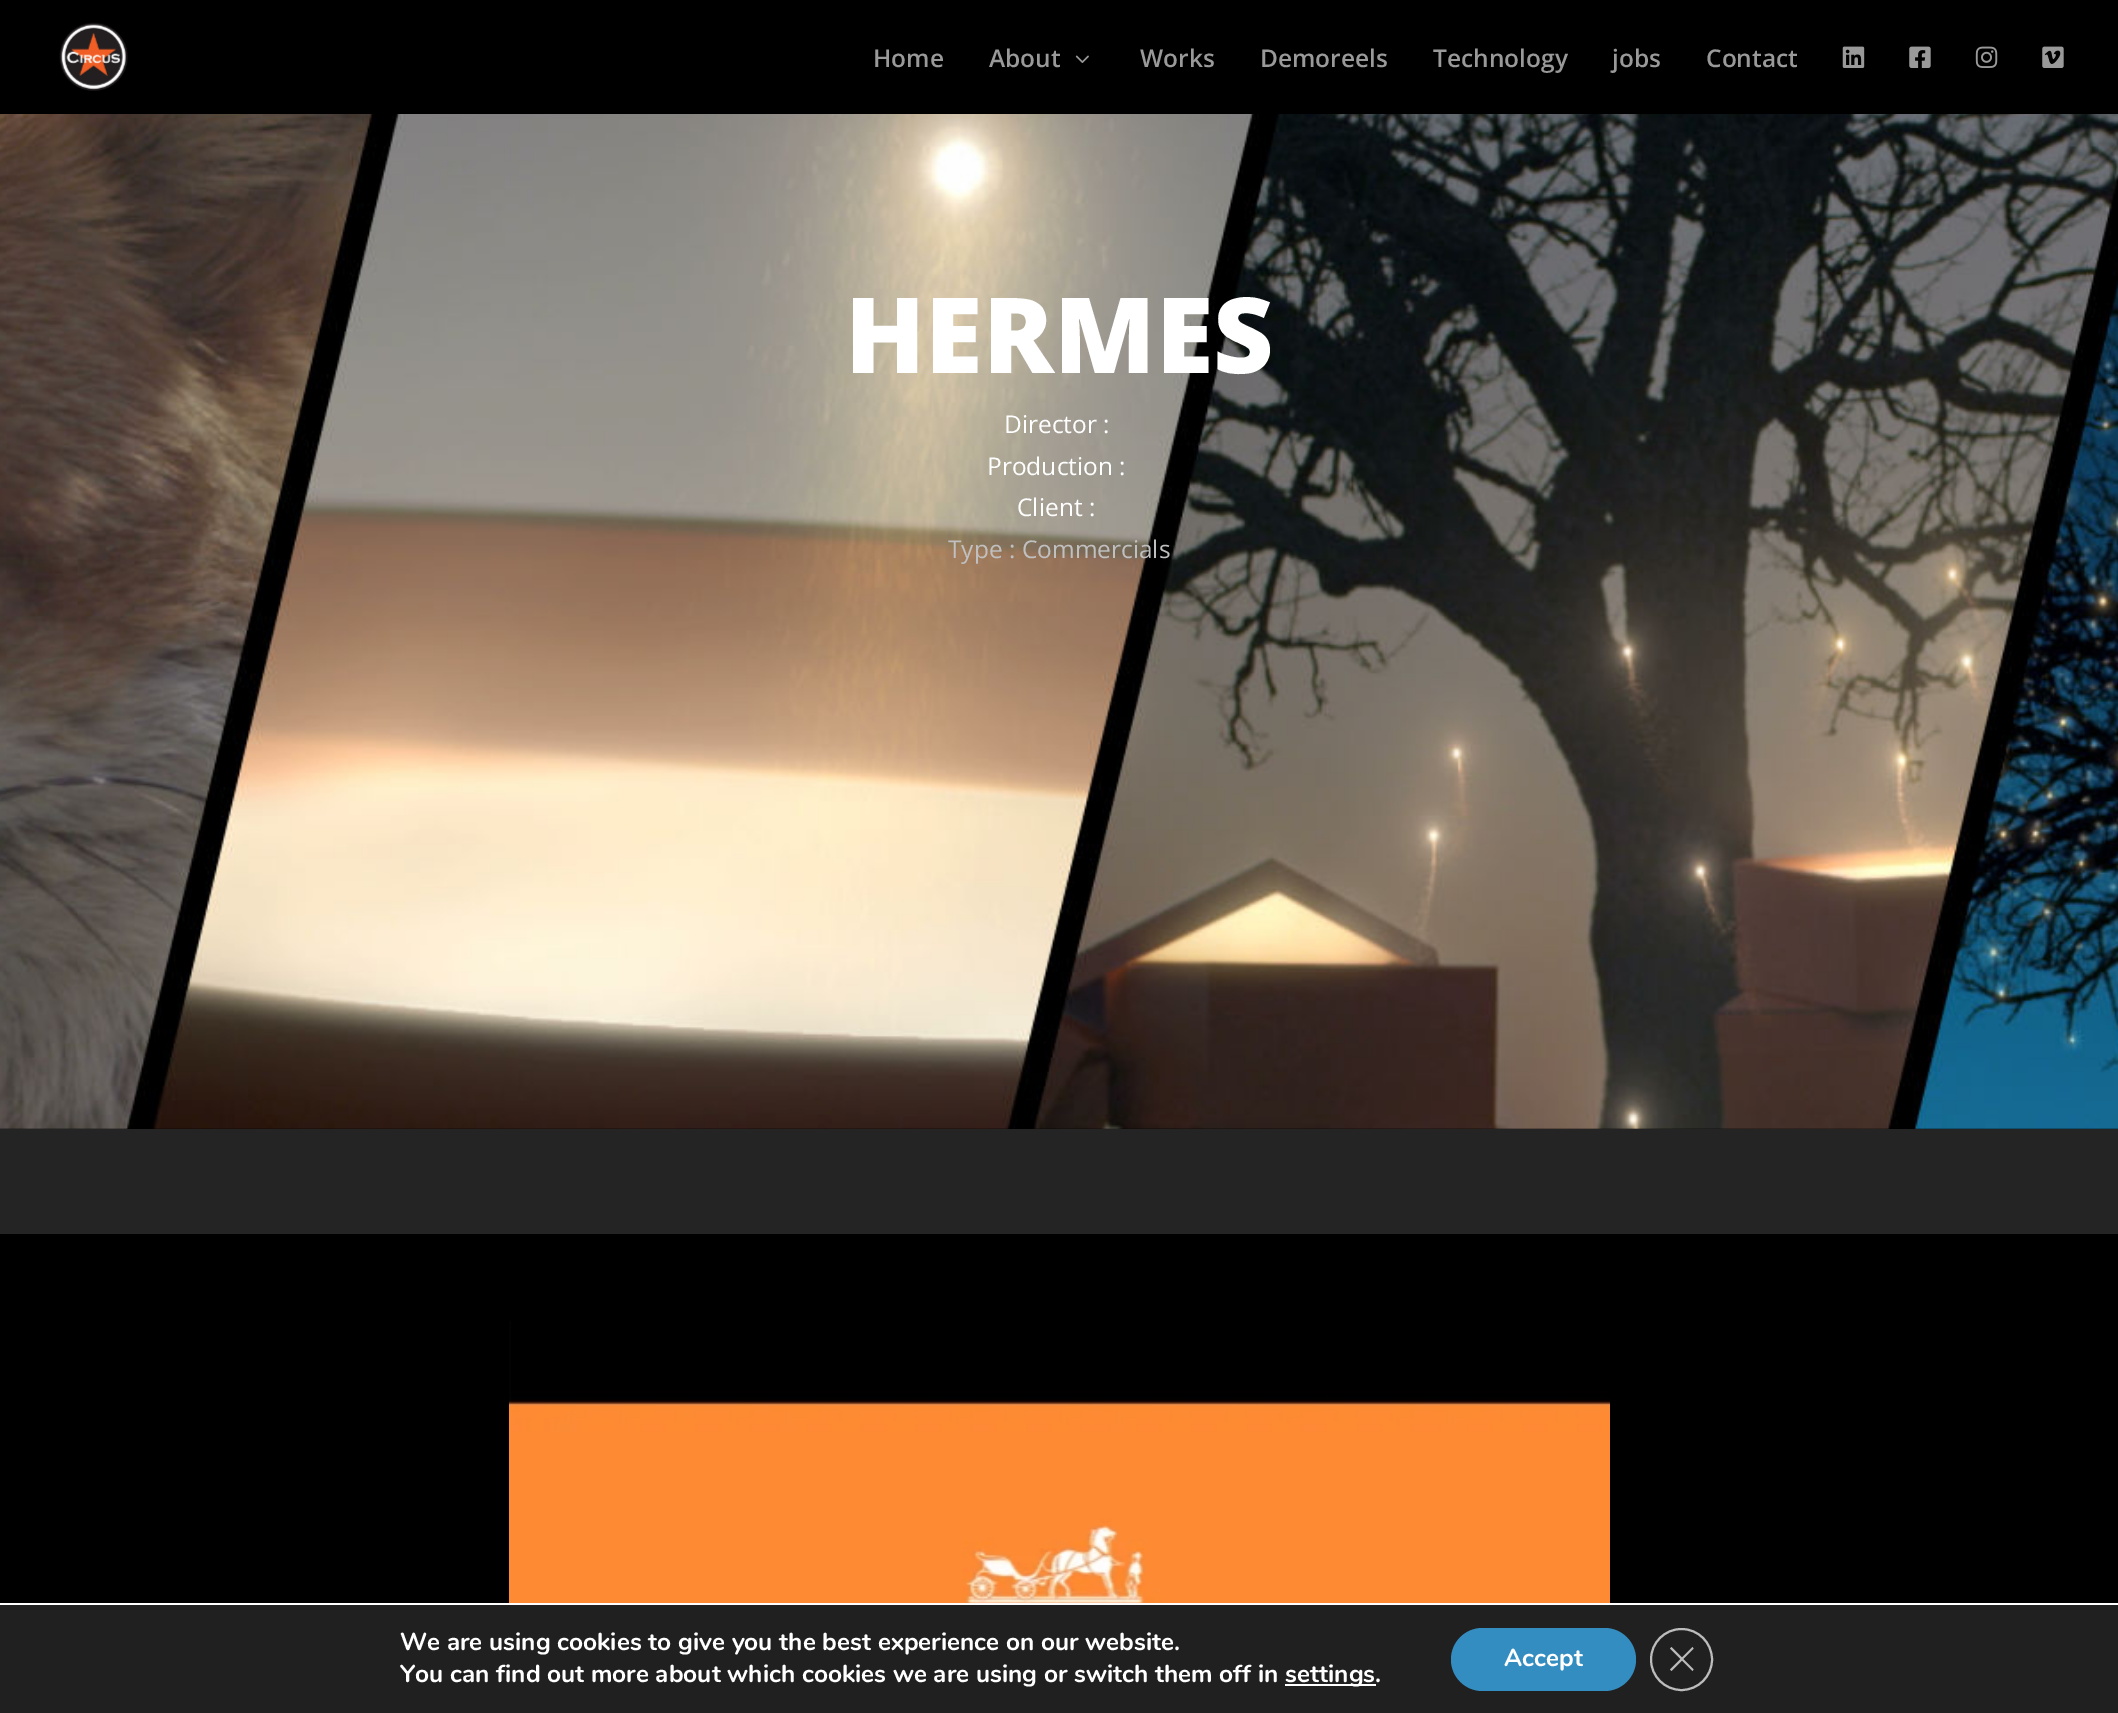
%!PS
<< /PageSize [2118 1713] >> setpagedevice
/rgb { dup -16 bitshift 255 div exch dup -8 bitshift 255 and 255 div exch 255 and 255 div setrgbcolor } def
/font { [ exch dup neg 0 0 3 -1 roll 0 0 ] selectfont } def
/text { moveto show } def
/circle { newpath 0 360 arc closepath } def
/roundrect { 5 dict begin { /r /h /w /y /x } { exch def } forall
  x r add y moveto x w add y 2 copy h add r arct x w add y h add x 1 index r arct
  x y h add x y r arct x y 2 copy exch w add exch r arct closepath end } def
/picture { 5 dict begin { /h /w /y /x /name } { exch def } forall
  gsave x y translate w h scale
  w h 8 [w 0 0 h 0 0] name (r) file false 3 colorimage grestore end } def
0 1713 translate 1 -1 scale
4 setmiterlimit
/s1 { /OpenSans-SemiBold 24.5 font 16#999999 rgb } def
/s2 { /OpenSans-ExtraBold 105 font 16#FFFFFF rgb } def
/s3 { /OpenSans-Regular 24.5 font 16#FFFFFF rgb } def
/s4 { /OpenSans-Regular 24.5 font 16#C0C0C0 rgb } def
/s5 { /Nunito-Bold 24.5 font 16#FFFFFF rgb } def
16#000000 rgb
0 0 2118 1713 rectfill
(pic1.raw) 59 22 69 69 picture
s1
(Home) 873 67 text
(About) 989 67 text
(pic2.raw) 1075 55 14 8 picture
(Works) 1140 67 text
(Demoreels) 1260 67 text
(Technology) 1433 67 text
(jobs) 1612 67 text
(Contact) 1706 67 text
(pic3.raw) 1842 46 23 22 picture
(pic4.raw) 1909 46 22 22 picture
(pic5.raw) 1975 46 23 22 picture
(pic6.raw) 2042 46 22 22 picture
(pic7.raw) 0 114 2118 1015 picture
s2
(HERMES) 845 373 text
s3
(Director :) 1004 433 text
(Production :) 987 475 text
(Client :) 1017 516 text
s4
(Type : Commercials) 948 558 text
16#242424 rgb
0 1129 2118 105 rectfill
(pic8.raw) 509 1321 1101 282 picture
16#202020 rgb
0 1605 2118 108 rectfill
16#FFFFFF rgb
0 1603 2118 2 rectfill
s5
(We are using cookies to give you the best experience on our website.) 400 1650 text
(You can find out more about which cookies we are using or switch them off in) 400 1682 text
1285 1684 91 2 rectfill
(settings.) 1285 1682 text
16#348DC0 rgb
1451 1628 185 63 31.5 roundrect fill
s5
(Accept) 1504 1666 text
16#BCBCBC rgb
2 setlinewidth
1681.5 1659.5 30.5 circle stroke
1692.5 1647 moveto 1693.5 1648.5 lineto 1671.5 1671 lineto 1670 1669.5 lineto closepath fill
1670 1648.5 moveto 1671.5 1647 lineto 1693.5 1669.5 lineto 1692.5 1671 lineto closepath fill
showpage
